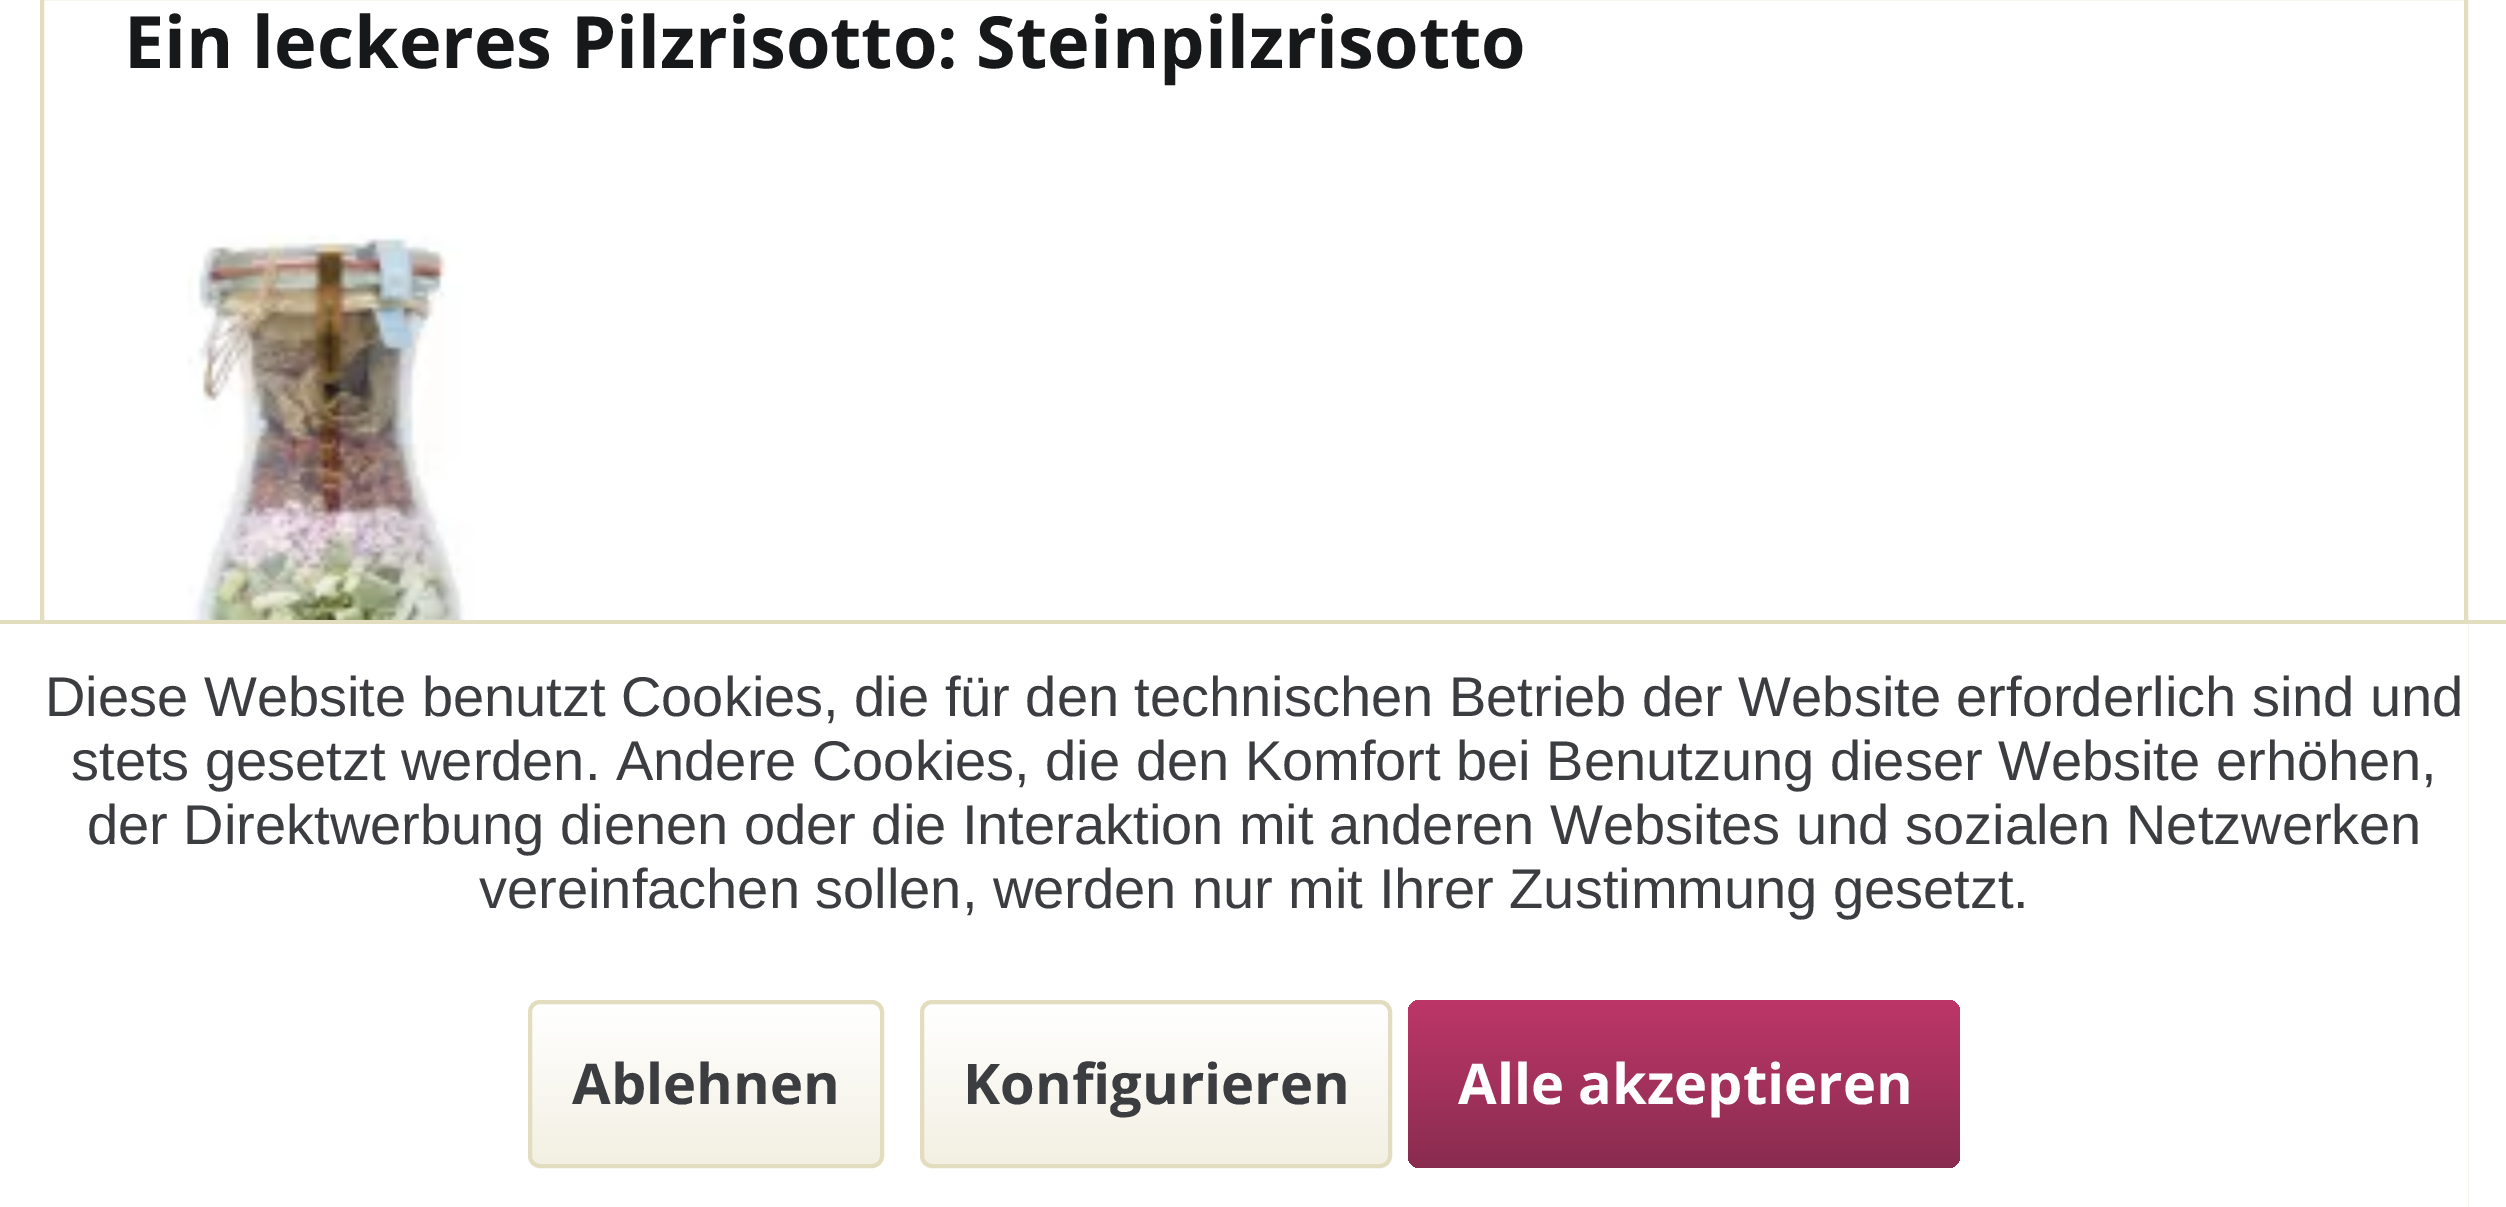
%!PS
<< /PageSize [2506 1207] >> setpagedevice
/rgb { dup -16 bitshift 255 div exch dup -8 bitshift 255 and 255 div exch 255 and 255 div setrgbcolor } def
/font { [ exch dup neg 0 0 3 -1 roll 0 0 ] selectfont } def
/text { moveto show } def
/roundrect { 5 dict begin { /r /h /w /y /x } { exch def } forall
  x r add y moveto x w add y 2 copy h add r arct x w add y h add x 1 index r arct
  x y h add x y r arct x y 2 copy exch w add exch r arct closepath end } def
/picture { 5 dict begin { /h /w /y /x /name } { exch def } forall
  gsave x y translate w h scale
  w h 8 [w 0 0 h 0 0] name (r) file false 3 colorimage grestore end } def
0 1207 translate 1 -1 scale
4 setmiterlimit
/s1 { /OpenSans-Bold 72 font 16#171819 rgb } def
/s2 { /LiberationSans-Regular 56 font 16#3C3D41 rgb } def
/s3 { /OpenSans-Bold 56 font 16#3C3D41 rgb } def
/s4 { /OpenSans-Bold 56 font 16#FFFFFF rgb } def
16#FFFFFF rgb
0 0 2506 1207 rectfill
16#E3DDBF rgb
4 setlinewidth
42 -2 2424 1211 rectstroke
s1
(Ein leckeres Pilzrisotto: Steinpilzrisotto) 124 68 text
(pic1.raw) 187 234 287 386 picture
16#FFFFFF rgb
40 624 2428 583 rectfill
16#E3DDBF rgb
0 620 2506 4 rectfill
s2
(Diese Website benutzt Cookies, die für den technischen Betrieb der Website erforderlich sind und) 45 716 text
(stets gesetzt werden. Andere Cookies, die den Komfort bei Benutzung dieser Website erhöhen,) 71 780 text
(der Direktwerbung dienen oder die Interaktion mit anderen Websites und sozialen Netzwerken) 87 844 text
(vereinfachen sollen, werden nur mit Ihrer Zustimmung gesetzt.) 479 908 text
gsave 532 1004 348 160 8 roundrect clip newpath
<< /ShadingType 2 /ColorSpace /DeviceRGB /Coords [706 1004 706 1164] /Extend [true true] /Function << /FunctionType 2 /Domain [0 1] /C0 [1 1 1] /C1 [0.953 0.941 0.89] /N 1 >> >> shfill grestore
16#E3DDBF rgb
530 1002 352 164 10 roundrect stroke
s3
(Ablehnen) 572 1104 text
gsave 924 1004 464 160 8 roundrect clip newpath
<< /ShadingType 2 /ColorSpace /DeviceRGB /Coords [1156 1004 1156 1164] /Extend [true true] /Function << /FunctionType 2 /Domain [0 1] /C0 [1 1 1] /C1 [0.953 0.941 0.89] /N 1 >> >> shfill grestore
16#E3DDBF rgb
922 1002 468 164 10 roundrect stroke
s3
(Konfigurieren) 963 1104 text
gsave 1408 1000 552 168 12 roundrect clip newpath
<< /ShadingType 2 /ColorSpace /DeviceRGB /Coords [1684 1000 1684 1168] /Extend [true true] /Function << /FunctionType 2 /Domain [0 1] /C0 [0.741 0.212 0.408] /C1 [0.537 0.176 0.31] /N 1 >> >> shfill grestore
s4
(Alle akzeptieren) 1458 1104 text
showpage
